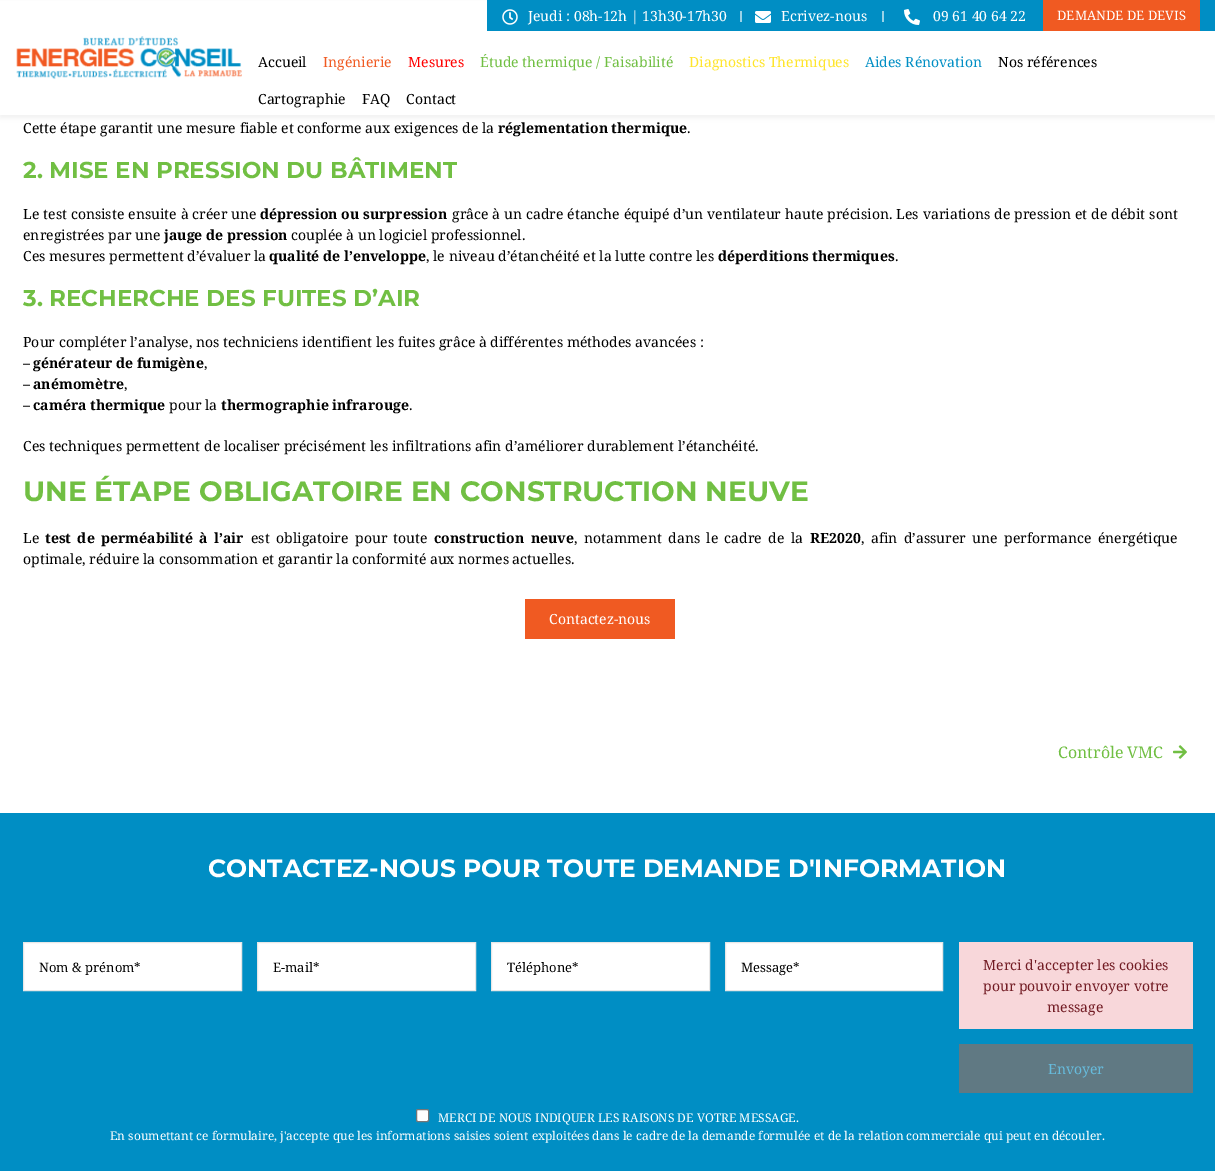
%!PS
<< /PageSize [1215 1171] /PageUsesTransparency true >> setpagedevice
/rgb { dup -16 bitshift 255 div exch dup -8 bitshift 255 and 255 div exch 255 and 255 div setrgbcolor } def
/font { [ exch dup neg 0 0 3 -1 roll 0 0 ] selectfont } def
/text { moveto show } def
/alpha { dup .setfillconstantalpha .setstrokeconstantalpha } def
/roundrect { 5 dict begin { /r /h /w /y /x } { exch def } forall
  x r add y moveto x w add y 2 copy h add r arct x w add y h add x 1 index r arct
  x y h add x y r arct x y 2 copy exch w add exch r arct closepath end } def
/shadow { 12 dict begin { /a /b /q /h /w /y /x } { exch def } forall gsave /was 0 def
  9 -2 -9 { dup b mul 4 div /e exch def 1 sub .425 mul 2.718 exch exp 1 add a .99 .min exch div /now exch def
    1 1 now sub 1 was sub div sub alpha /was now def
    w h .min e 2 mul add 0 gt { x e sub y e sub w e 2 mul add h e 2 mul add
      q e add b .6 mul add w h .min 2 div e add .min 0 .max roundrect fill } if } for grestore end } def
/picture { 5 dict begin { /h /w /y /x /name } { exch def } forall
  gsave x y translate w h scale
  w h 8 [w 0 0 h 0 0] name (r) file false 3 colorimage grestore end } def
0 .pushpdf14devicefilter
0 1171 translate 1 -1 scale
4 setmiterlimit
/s1 { /NotoSerif-Regular 14 font 16#FFFFFF rgb } def
/s2 { /NotoSerif-Regular 13 font 16#FFFFFF rgb } def
/s3 { /NotoSerif-Regular 14 font 16#000000 rgb } def
/s4 { /NotoSerif-Regular 14 font 16#F05A22 rgb } def
/s5 { /NotoSerif-Regular 14 font 16#FF0000 rgb } def
/s6 { /NotoSerif-Regular 14 font 16#71BF43 rgb } def
/s7 { /NotoSerif-Regular 14 font 16#FFE52C rgb } def
/s8 { /NotoSerif-Regular 14 font 16#008EC4 rgb } def
/s9 { /NotoSerif-Bold 14 font 16#000000 rgb } def
/s10 { /Montserrat-Bold 23 font 16#71BF43 rgb } def
/s11 { /Montserrat-Bold 28 font 16#71BF43 rgb } def
/s12 { /NotoSerif-Regular 16 font 16#71BF43 rgb } def
/s13 { /Montserrat-Bold 25 font 16#FFFFFF rgb } def
/s14 { /NotoSerif-Regular 13 font 16#000000 rgb } def
/s15 { /NotoSerif-Regular 14 font 16#721C24 rgb } def
/s16 { /NotoSerif-Regular 14 font 16#66BBDC rgb } def
/s17 { /NotoSerif-Regular 12 font 16#FFFFFF rgb } def
16#FFFFFF rgb
0 0 1215 1171 rectfill
16#000000 rgb
0 3 1215 115 0 2.5 0.05 shadow
16#FFFFFF rgb
0 1 1215 114 rectfill
(pic1.raw) 16 36 226 43 picture
16#008EC4 rgb
487 0 556 31 rectfill
(pic2.raw) 502 9 16 16 picture
s1
(Jeudi : 08h-12h | 13h30-17h30) 528 21 text
16#99D2E7 rgb
740 11 2 11 rectfill
(pic3.raw) 755 11 16 12 picture
s1
(Ecrivez-nous) 781 21 text
16#99D2E7 rgb
882 11 2 11 rectfill
(pic4.raw) 904 9 16 16 picture
s1
(09 61 40 64 22) 933 21 text
16#F05A22 rgb
1043 0 157 31 rectfill
s2
(DEMANDE DE DEVIS) 1057 20 text
16#008EC4 rgb
1200 0 15 31 rectfill
s3
(Accueil) 258 67 text
s4
(Ingénierie) 323 67 text
s5
(Mesures) 408 67 text
s6
(Étude thermique / Faisabilité) 480 67 text
s7
(Diagnostics Thermiques) 689 67 text
s8
(Aides Rénovation) 865 67 text
s3
(Nos références) 998 67 text
(Cartographie) 258 104 text
(FAQ) 362 104 text
(Contact) 406 104 text
(Cette étape garantit une mesure fiable et conforme aux exigences de la) 23 133 text
s9
(réglementation thermique) 498 133 text
s3
(.) 687 133 text
s10
(2. MISE EN PRESSION DU BÂTIMENT) 23 178 text
/NotoSerif-Regular 14 font
16#000000 rgb
23 219 moveto 0.25 0 32 (Le test consiste ensuite à créer une) widthshow
s9
(dépression ou surpression) 260 219 text
/NotoSerif-Regular 14 font
452 219 moveto 0.25 0 32 (grâce à un cadre étanche équipé d’un ventilateur haute précision. Les variations de pression et de débit sont) widthshow
(enregistrées par une) 23 240 text
s9
(jauge de pression) 164 240 text
s3
(couplée à un logiciel professionnel.) 291 240 text
(Ces mesures permettent d’évaluer la) 23 261 text
s9
(qualité de l’enveloppe) 269 261 text
s3
(, le niveau d’étanchéité et la lutte contre les) 426 261 text
s9
(déperditions thermiques) 718 261 text
s3
(.) 895 261 text
s10
(3. RECHERCHE DES FUITES D’AIR) 23 306 text
s3
(Pour compléter l’analyse, nos techniciens identifient les fuites grâce à différentes méthodes avancées :) 23 347 text
(–) 23 368 text
s9
(générateur de fumigène) 33 368 text
s3
(,) 204 368 text
(–) 23 389 text
s9
(anémomètre) 33 389 text
s3
(,) 124 389 text
(–) 23 410 text
s9
(caméra thermique) 33 410 text
s3
(pour la) 169 410 text
s9
(thermographie infrarouge) 221 410 text
s3
(.) 409 410 text
(Ces techniques permettent de localiser précisément les infiltrations afin d’améliorer durablement l’étanchéité.) 23 451 text
s11
(UNE ÉTAPE OBLIGATOIRE EN CONSTRUCTION NEUVE) 23 501 text
s3
(Le) 23 543 text
/NotoSerif-Bold 14 font
45 543 moveto 2.75 0 32 (test de perméabilité à l’air) widthshow
/NotoSerif-Regular 14 font
251 543 moveto 2.75 0 32 (est obligatoire pour toute) widthshow
/NotoSerif-Bold 14 font
434 543 moveto 2.75 0 32 (construction neuve) widthshow
/NotoSerif-Regular 14 font
574 543 moveto 2.75 0 32 (, notamment dans le cadre de la) widthshow
s9
(RE2020) 810 543 text
/NotoSerif-Regular 14 font
861 543 moveto 2.75 0 32 (, afin d’assurer une performance énergétique) widthshow
(optimale, réduire la consommation et garantir la conformité aux normes actuelles.) 23 564 text
16#F05A22 rgb
525 599 150 40 rectfill
s1
(Contactez-nous) 549 624 text
s12
(Contrôle VMC) 1058 758 text
(pic5.raw) 1173 745 14 14 picture
16#008EC4 rgb
0 813 1215 358 rectfill
s13
(CONTACTEZ-NOUS POUR TOUTE DEMANDE D'INFORMATION) 208 877 text
23.5 942.5 moveto 241.5 942.5 lineto 241.5 990.5 lineto 23.5 990.5 lineto closepath gsave fill grestore
16#E7E7E7 rgb
stroke
s14
(Nom & prénom*) 39 972 text
16#FFFFFF rgb
257.5 942.5 moveto 475.5 942.5 lineto 475.5 990.5 lineto 257.5 990.5 lineto closepath gsave fill grestore
16#E7E7E7 rgb
stroke
s14
(E-mail*) 273 972 text
16#FFFFFF rgb
491.5 942.5 moveto 709.5 942.5 lineto 709.5 990.5 lineto 491.5 990.5 lineto closepath gsave fill grestore
16#E7E7E7 rgb
stroke
s14
(Téléphone*) 507 972 text
16#FFFFFF rgb
725.5 942.5 moveto 942.5 942.5 lineto 942.5 990.5 lineto 725.5 990.5 lineto closepath gsave fill grestore
16#E7E7E7 rgb
stroke
s14
(Message*) 741 972 text
16#F8D7DA rgb
959 942 234 87 rectfill
s15
(Merci d'accepter les cookies) 983 970 text
(pour pouvoir envoyer votre) 983 991 text
(message) 1047 1012 text
16#607983 rgb
959 1044 234 49 rectfill
s16
(Envoyer) 1048 1074 text
16#FFFFFF rgb
416.5 1109.5 12 12 1.5 roundrect gsave fill grestore
16#767676 rgb
stroke
s17
(MERCI DE NOUS INDIQUER LES RAISONS DE VOTRE MESSAGE.) 438 1122 text
(En soumettant ce formulaire, j'accepte que les informations saisies soient exploitées dans le cadre de la demande formulée et de la relation commerciale qui peut en découler.) 110 1140 text
.poppdf14devicefilter showpage
